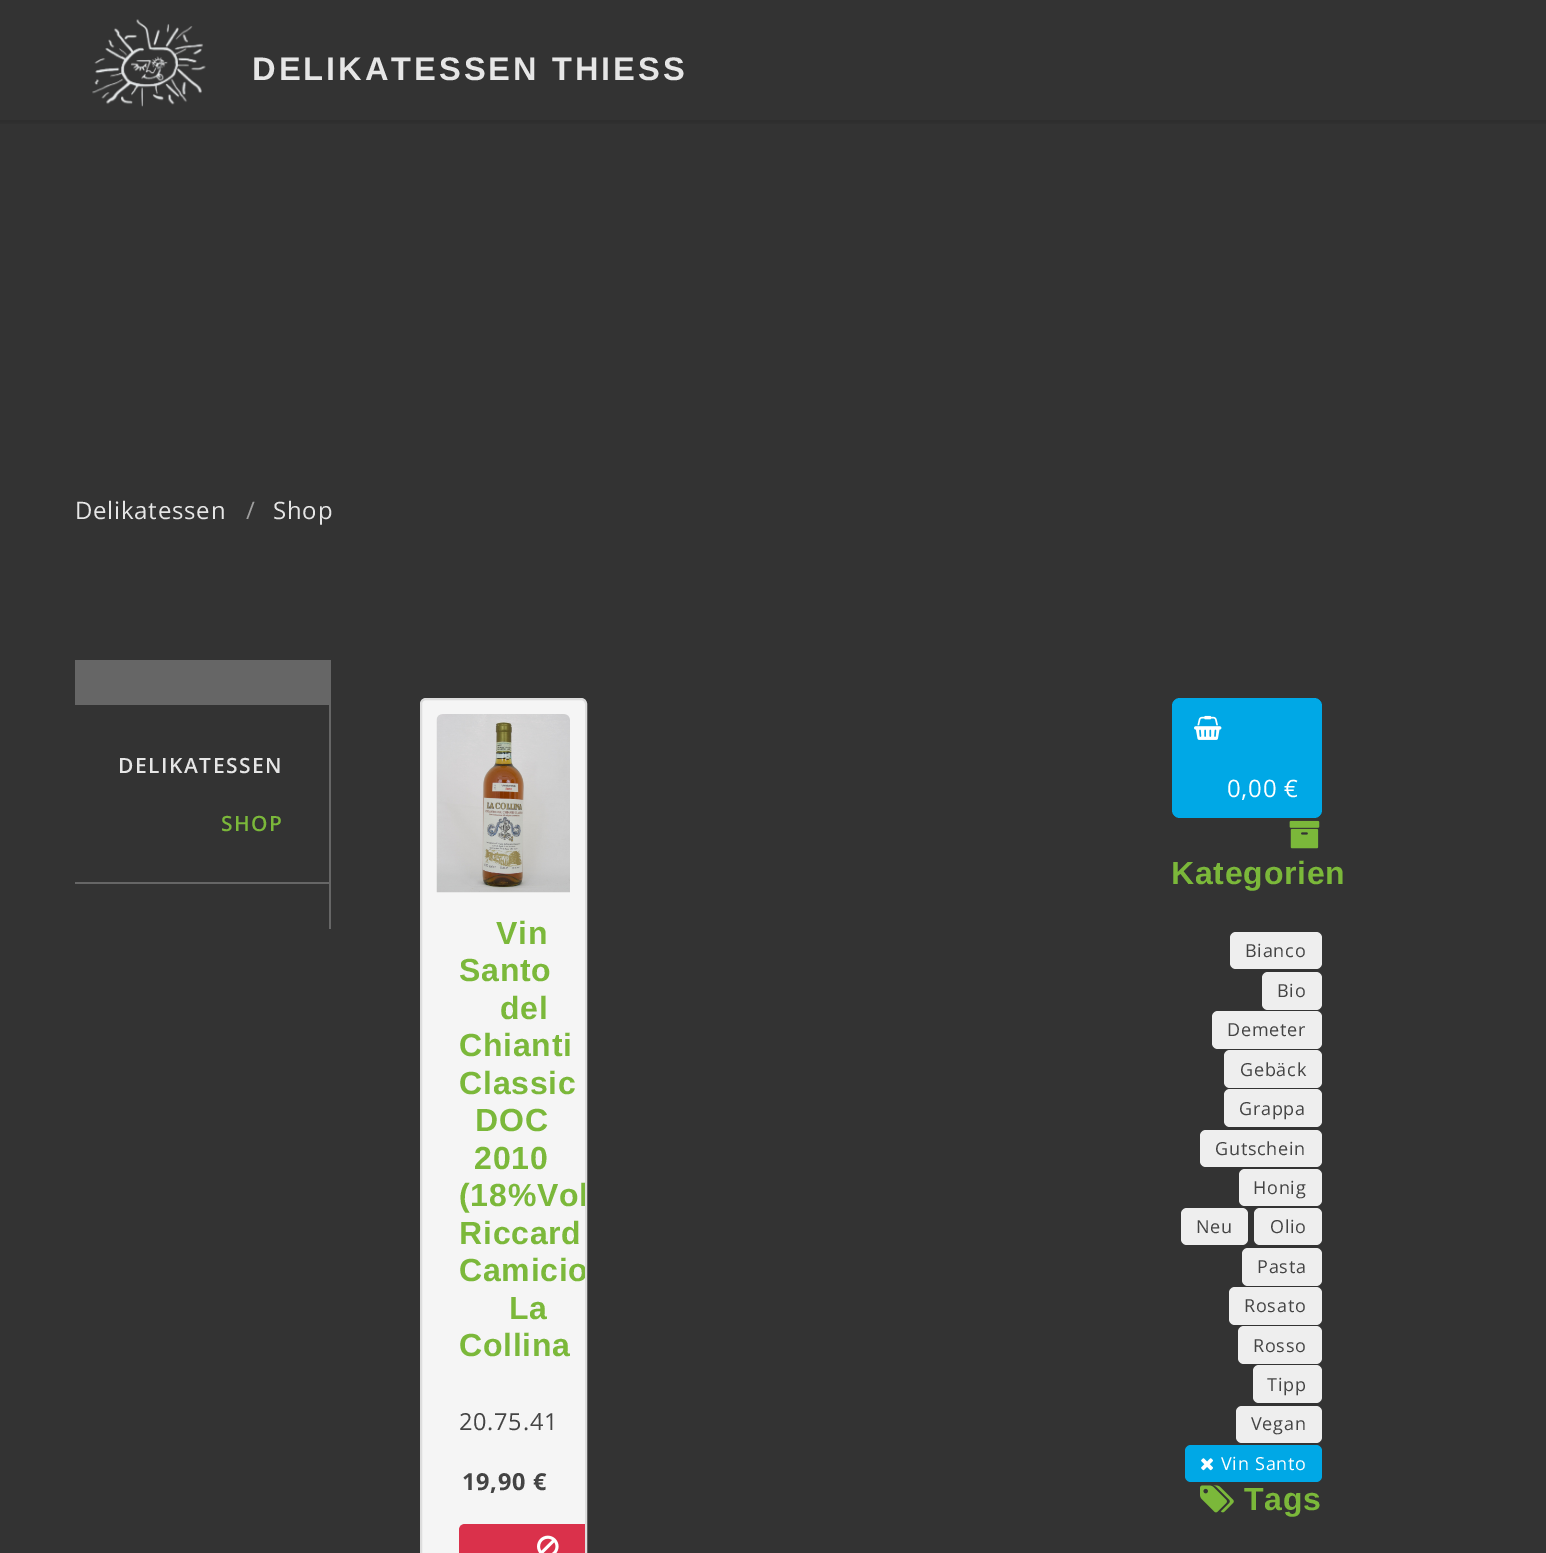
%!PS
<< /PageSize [1546 1553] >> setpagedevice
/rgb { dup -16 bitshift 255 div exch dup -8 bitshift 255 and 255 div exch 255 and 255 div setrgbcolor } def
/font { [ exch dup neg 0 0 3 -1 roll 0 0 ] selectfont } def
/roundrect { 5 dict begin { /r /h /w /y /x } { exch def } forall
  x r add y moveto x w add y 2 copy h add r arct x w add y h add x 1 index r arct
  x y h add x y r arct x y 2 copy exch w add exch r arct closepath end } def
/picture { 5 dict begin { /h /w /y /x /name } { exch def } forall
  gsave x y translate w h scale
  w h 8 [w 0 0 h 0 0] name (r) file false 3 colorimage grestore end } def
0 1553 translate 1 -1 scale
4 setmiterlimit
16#333333 rgb
0 0 1546 1553 rectfill
(pic1.raw) 92 19 114 88 picture
/LiberationSans-Bold 32.6 font
16#E6E6E6 rgb
252 80 moveto 3 0 (DELIKATESSEN THIESS) ashow
gsave 0 120 moveto 1546 120 lineto 1546 124 lineto 0 124 lineto closepath clip newpath
<< /ShadingType 2 /ColorSpace /DeviceRGB /Coords [773 120 773 128] /Extend [true true] /Function << /FunctionType 2 /Domain [0 1] /C0 [0.18 0.18 0.18] /C1 [0.2 0.2 0.2] /N 1 >> >> shfill grestore
/OpenSans-Regular 24 font
75 519 moveto 0.75 0 (Delikatessen) ashow
16#9E9E9E rgb
246 519 moveto 0.75 0 (/) ashow
16#E6E6E6 rgb
273 519 moveto 0.75 0 (Shop) ashow
16#666666 rgb
329 660 2 269 rectfill
75 660 254 45 rectfill
/OpenSans-SemiBold 21 font
16#E6E6E6 rgb
118 773 moveto 1.5 0 (DELIKATESSEN) ashow
16#7BB83A rgb
221 831 moveto 1.5 0 (SHOP) ashow
16#666666 rgb
75 882 254 2 rectfill
16#F5F5F5 rgb
421 699 165 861 5 roundrect gsave fill grestore
16#DDDDDD rgb
2 setlinewidth
stroke
(pic2.raw) 436 714 134 179 picture
/LiberationSans-Bold 32 font
16#7BB83A rgb
496 944 moveto 0.75 0 (Vin) ashow
459 981 moveto 0.75 0 (Santo) ashow
500 1019 moveto 0.75 0 (del) ashow
459 1056 moveto 0.75 0 (Chianti) ashow
459 1094 moveto 0.75 0 (Classic) ashow
475 1131 moveto 0.75 0 (DOC) ashow
474 1169 moveto 0.75 0 (2010) ashow
gsave
422 699 163 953 5 roundrect clip newpath
459 1206 moveto 0.75 0 (\(18%Vol) ashow
grestore
459 1244 moveto 0.75 0 (Riccard) ashow
gsave
422 699 163 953 5 roundrect clip newpath
459 1281 moveto 0.75 0 (Camicio) ashow
grestore
509 1319 moveto 0.75 0 (La) ashow
459 1356 moveto 0.75 0 (Collina) ashow
/OpenSans-Regular 23.5 font
16#444444 rgb
459 1430 moveto 0.75 0 (20.75.41) ashow
/OpenSans-Bold 23.5 font
462 1490 moveto 0.75 0 (19,90 €) ashow
16#DA314B rgb
465 1524 moveto 585 1524 lineto 585 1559 lineto 465 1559 lineto 461.5 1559 459 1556.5 459 1553 curveto 459 1530 lineto 459 1526.5 461.5 1524 465 1524 curveto closepath fill
(pic3.raw) 537 1535 22 18 picture
16#00A8E6 rgb
1172 698 150 120 8 roundrect fill
(pic4.raw) 1194 715 28 25 picture
/OpenSans-Regular 24 font
16#FFFFFF rgb
1227 797 moveto 0.75 0 (0,00 €) ashow
(pic5.raw) 1289 820 31 29 picture
/LiberationSans-Bold 32 font
16#7BB83A rgb
1171 884 moveto 0.75 0 (Kategorien) ashow
16#EEEEEE rgb
1230 932 92 37 6 roundrect fill
/OpenSans-Regular 18 font
16#444444 rgb
1245 957 moveto 0.75 0 (Bianco) ashow
16#EEEEEE rgb
1262 972 60 38 6 roundrect fill
16#444444 rgb
1277 997 moveto 0.75 0 (Bio) ashow
16#EEEEEE rgb
1212 1011 110 38 6 roundrect fill
16#444444 rgb
1227 1036 moveto 0.75 0 (Demeter) ashow
16#EEEEEE rgb
1224 1050 98 38 6 roundrect fill
16#444444 rgb
1240 1076 moveto 0.75 0 (Gebäck) ashow
16#EEEEEE rgb
1224 1089 98 38 6 roundrect fill
16#444444 rgb
1239 1115 moveto 0.75 0 (Grappa) ashow
16#EEEEEE rgb
1200 1130 122 37 6 roundrect fill
16#444444 rgb
1215 1155 moveto 0.75 0 (Gutschein) ashow
16#EEEEEE rgb
1239 1169 83 37 6 roundrect fill
16#444444 rgb
1253 1194 moveto 0.75 0 (Honig) ashow
16#EEEEEE rgb
1181 1208 67 37 6 roundrect fill
16#444444 rgb
1196 1233 moveto 0.75 0 (Neu) ashow
16#EEEEEE rgb
1254 1208 68 37 6 roundrect fill
16#444444 rgb
1270 1233 moveto 0.75 0 (Olio) ashow
16#EEEEEE rgb
1242 1248 80 38 6 roundrect fill
16#444444 rgb
1257 1273 moveto 0.75 0 (Pasta) ashow
16#EEEEEE rgb
1229 1287 93 38 6 roundrect fill
16#444444 rgb
1244 1312 moveto 0.75 0 (Rosato) ashow
16#EEEEEE rgb
1238 1326 84 38 6 roundrect fill
16#444444 rgb
1253 1352 moveto 0.75 0 (Rosso) ashow
16#EEEEEE rgb
1253 1365 69 38 6 roundrect fill
16#444444 rgb
1267 1391 moveto 0.75 0 (Tipp) ashow
16#EEEEEE rgb
1236 1406 86 37 6 roundrect fill
16#444444 rgb
1251 1430 moveto 0.75 0 (Vegan) ashow
16#00A8E6 rgb
1185 1445 137 37 6 roundrect fill
(pic6.raw) 1201 1458 12 13 picture
16#FFFFFF rgb
1221 1470 moveto 0.75 0 (Vin Santo) ashow
(pic7.raw) 1200 1485 34 28 picture
/LiberationSans-Bold 32 font
16#7BB83A rgb
1244 1510 moveto 0.75 0 (Tags) ashow
showpage
